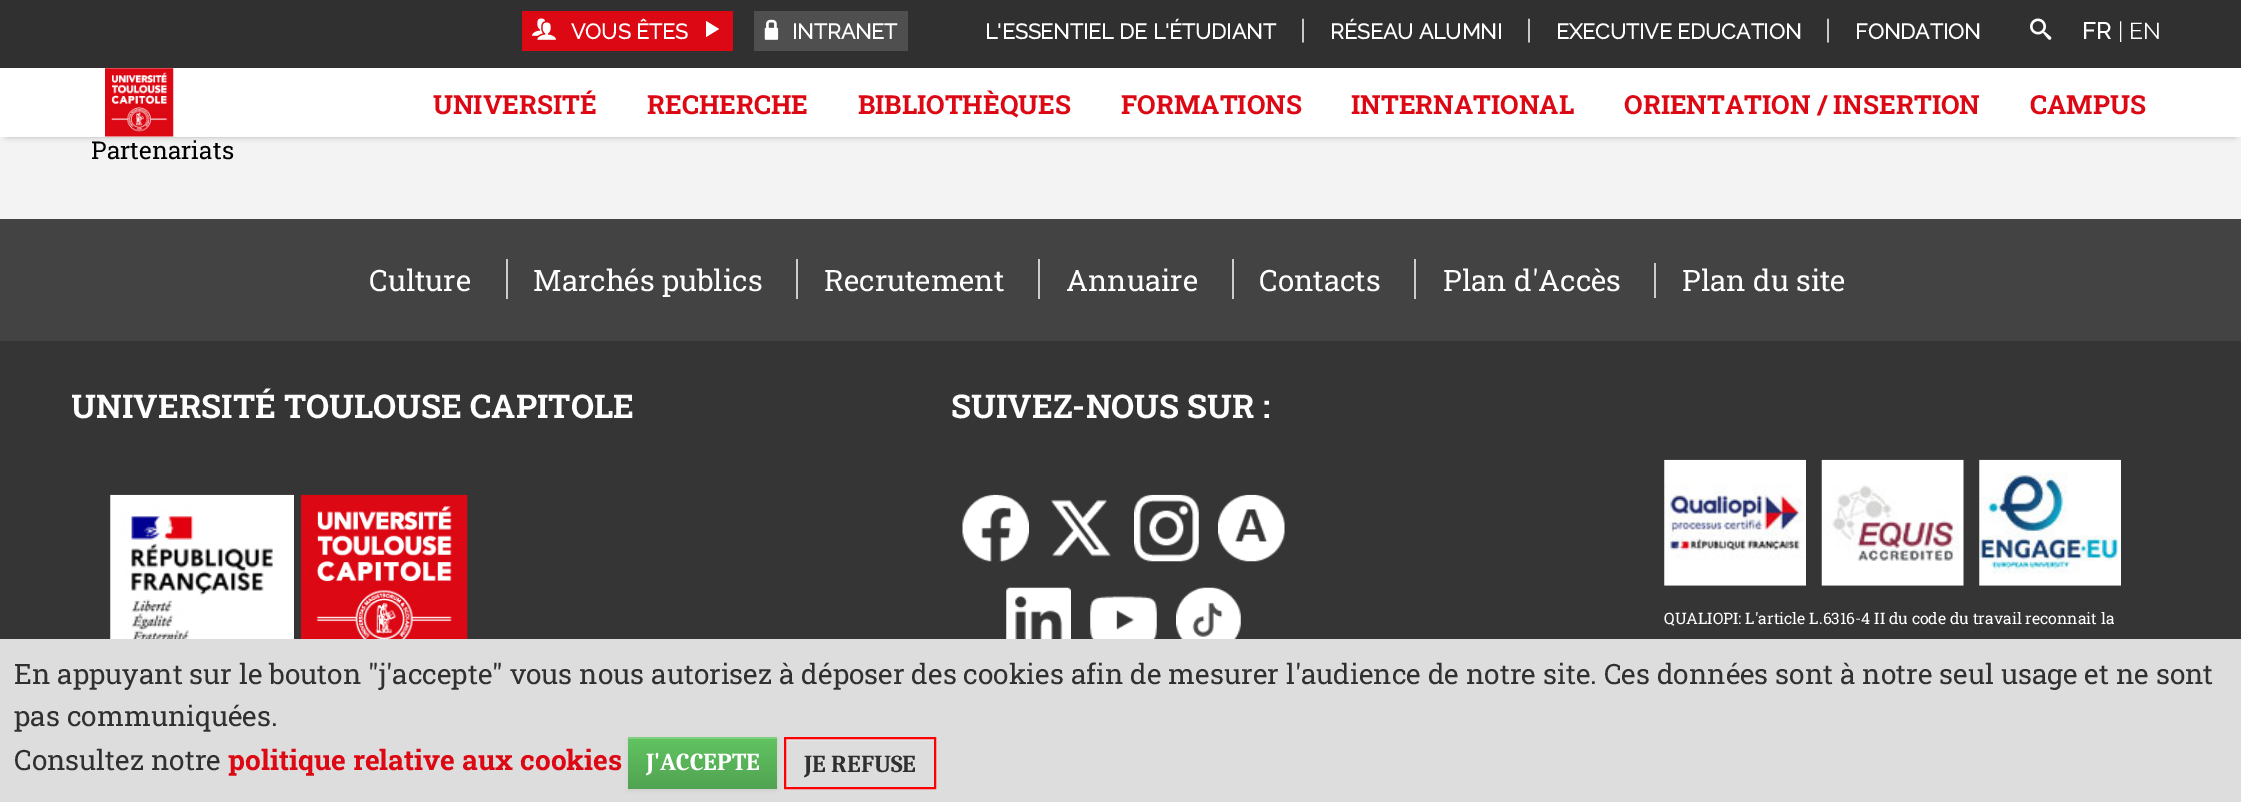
%!PS
<< /PageSize [2241 802] /PageUsesTransparency true >> setpagedevice
/rgb { dup -16 bitshift 255 div exch dup -8 bitshift 255 and 255 div exch 255 and 255 div setrgbcolor } def
/font { [ exch dup neg 0 0 3 -1 roll 0 0 ] selectfont } def
/text { moveto show } def
/alpha { dup .setfillconstantalpha .setstrokeconstantalpha } def
/roundrect { 5 dict begin { /r /h /w /y /x } { exch def } forall
  x r add y moveto x w add y 2 copy h add r arct x w add y h add x 1 index r arct
  x y h add x y r arct x y 2 copy exch w add exch r arct closepath end } def
/shadow { 12 dict begin { /a /b /q /h /w /y /x } { exch def } forall gsave /was 0 def
  9 -2 -9 { dup b mul 4 div /e exch def 1 sub .425 mul 2.718 exch exp 1 add a .99 .min exch div /now exch def
    1 1 now sub 1 was sub div sub alpha /was now def
    w h .min e 2 mul add 0 gt { x e sub y e sub w e 2 mul add h e 2 mul add
      q e add b .6 mul add w h .min 2 div e add .min 0 .max roundrect fill } if } for grestore end } def
/picture { 5 dict begin { /h /w /y /x /name } { exch def } forall
  gsave x y translate w h scale
  w h 8 [w 0 0 h 0 0] name (r) file false 3 colorimage grestore end } def
0 .pushpdf14devicefilter
0 802 translate 1 -1 scale
4 setmiterlimit
/s1 { /Raleway-Bold 21.3 font 16#FFFFFF rgb } def
/s2 { /Raleway-Regular 26.25 font 16#FFFFFF rgb } def
/s3 { /Raleway-Bold 23 font 16#FFFFFF rgb } def
/s4 { /Raleway-Regular 23 font 16#FFFFFF rgb } def
/s5 { /RobotoSlab-Bold 26.25 font 16#DC0814 rgb } def
/s6 { /RobotoSlab-Regular 24.5 font 16#000000 rgb } def
/s7 { /RobotoSlab-Regular 29.5 font 16#FFFFFF rgb } def
/s8 { /RobotoSlab-Bold 32.8 font 16#FFFFFF rgb } def
/s9 { /RobotoSlab-Regular 15.75 font 16#FFFFFF rgb } def
/s10 { /RobotoSlab-Regular 28 font 16#303030 rgb } def
/s11 { /RobotoSlab-Bold 28 font 16#DC0814 rgb } def
/s12 { /Caladea-Bold 24.5 font 16#FFFFFF rgb } def
/s13 { /Caladea-Bold 24.5 font 16#303030 rgb } def
16#F3F3F3 rgb
0 0 2241 802 rectfill
16#303030 rgb
0 0 2241 68 rectfill
16#DC0814 rgb
522 11 211 40 rectfill
(pic1.raw) 532 18 24 22 picture
s1
(VOUS ÊTES) 571 39 text
706 21 moveto 719 29 lineto 706 37 lineto closepath fill
16#4F4F4F rgb
754 11 154 40 rectfill
(pic2.raw) 764 19 15 21 picture
s1
(INTRANET) 792 39 text
(L'ESSENTIEL DE L'ÉTUDIANT) 985 39 text
s2
(|) 1300 39 text
s1
(RÉSEAU ALUMNI) 1330 39 text
s2
(|) 1526 39 text
s1
(EXECUTIVE EDUCATION) 1556 39 text
s2
(|) 1825 39 text
s1
(FONDATION) 1855 39 text
(pic3.raw) 2030 18 22 22 picture
s3
(FR) 2082 39 text
s4
(| EN) 2118 39 text
16#808080 rgb
7 81 2228 54 0 3.5 1 shadow
16#FFFFFF rgb
0 68 2241 69 rectfill
(pic4.raw) 105 68 69 69 picture
s5
(UNIVERSITÉ) 433 114 text
(RECHERCHE) 647 114 text
(BIBLIOTHÈQUES) 858 114 text
(FORMATIONS) 1121 114 text
(INTERNATIONAL) 1351 114 text
(ORIENTATION / INSERTION) 1624 114 text
(CAMPUS) 2030 114 text
s6
(Partenariats) 91 159 text
16#434343 rgb
0 219 2241 122 rectfill
s7
(Culture) 369 291 text
(Marchés publics) 533 291 text
16#CCCCCC rgb
506 259 2 40 rectfill
s7
(Recrutement) 824 291 text
16#CCCCCC rgb
796 259 2 40 rectfill
s7
(Annuaire) 1066 291 text
16#CCCCCC rgb
1038 259 2 40 rectfill
s7
(Contacts) 1259 291 text
16#CCCCCC rgb
1232 259 2 40 rectfill
s7
(Plan d'Accès) 1443 291 text
16#CCCCCC rgb
1414 259 2 40 rectfill
s7
(Plan du site) 1682 291 text
16#CCCCCC rgb
1654 263 2 35 rectfill
16#353535 rgb
0 341 2241 298 rectfill
gsave
72 341 2100 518 rectclip
s8
(UNIVERSITÉ TOULOUSE CAPITOLE) 71 418 text
grestore
(pic5.raw) 110 494 184 145 picture
(pic6.raw) 301 494 167 145 picture
s8
(SUIVEZ-NOUS SUR :) 951 418 text
(pic7.raw) 962 494 67 68 picture
(pic8.raw) 1050 499 61 58 picture
(pic9.raw) 1134 494 65 68 picture
(pic10.raw) 1218 494 67 68 picture
(pic11.raw) 1006 587 65 52 picture
(pic12.raw) 1090 596 67 43 picture
(pic13.raw) 1176 587 65 52 picture
(pic14.raw) 1664 459 142 127 picture
(pic15.raw) 1821 459 143 127 picture
(pic16.raw) 1979 459 142 127 picture
s9
(QUALIOPI: L'article L.6316-4 II du code du travail reconnait la) 1664 624 text
16#DDDDDD rgb
0 639 2241 163 rectfill
s10
(En appuyant sur le bouton "j'accepte" vous nous autorisez à déposer des cookies afin de mesurer l'audience de notre site. Ces données sont à notre seul usage et ne sont) 14 684 text
(pas communiquées.) 14 726 text
(Consultez notre) 14 770 text
s11
(politique relative aux cookies) 228 770 text
16#000000 rgb
628 739 149 52 0 2 0.05 shadow
gsave 628 739 moveto 777 739 lineto 777 789 lineto 628 789 lineto closepath clip newpath
<< /ShadingType 2 /ColorSpace /DeviceRGB /Coords [703 737 703 789] /Extend [true true] /Function << /FunctionType 2 /Domain [0 1] /C0 [0.384 0.769 0.384] /C1 [0.318 0.639 0.318] /N 1 >> >> shfill grestore
16#81CF81 rgb
628 737 149 2 rectfill
s12
(J'ACCEPTE) 646 770 text
16#E4E4E4 rgb
786 739 149 2 rectfill
16#FF0000 rgb
2 setlinewidth
785 738 150 50 rectstroke
s13
(JE REFUSE) 804 772 text
.poppdf14devicefilter showpage
